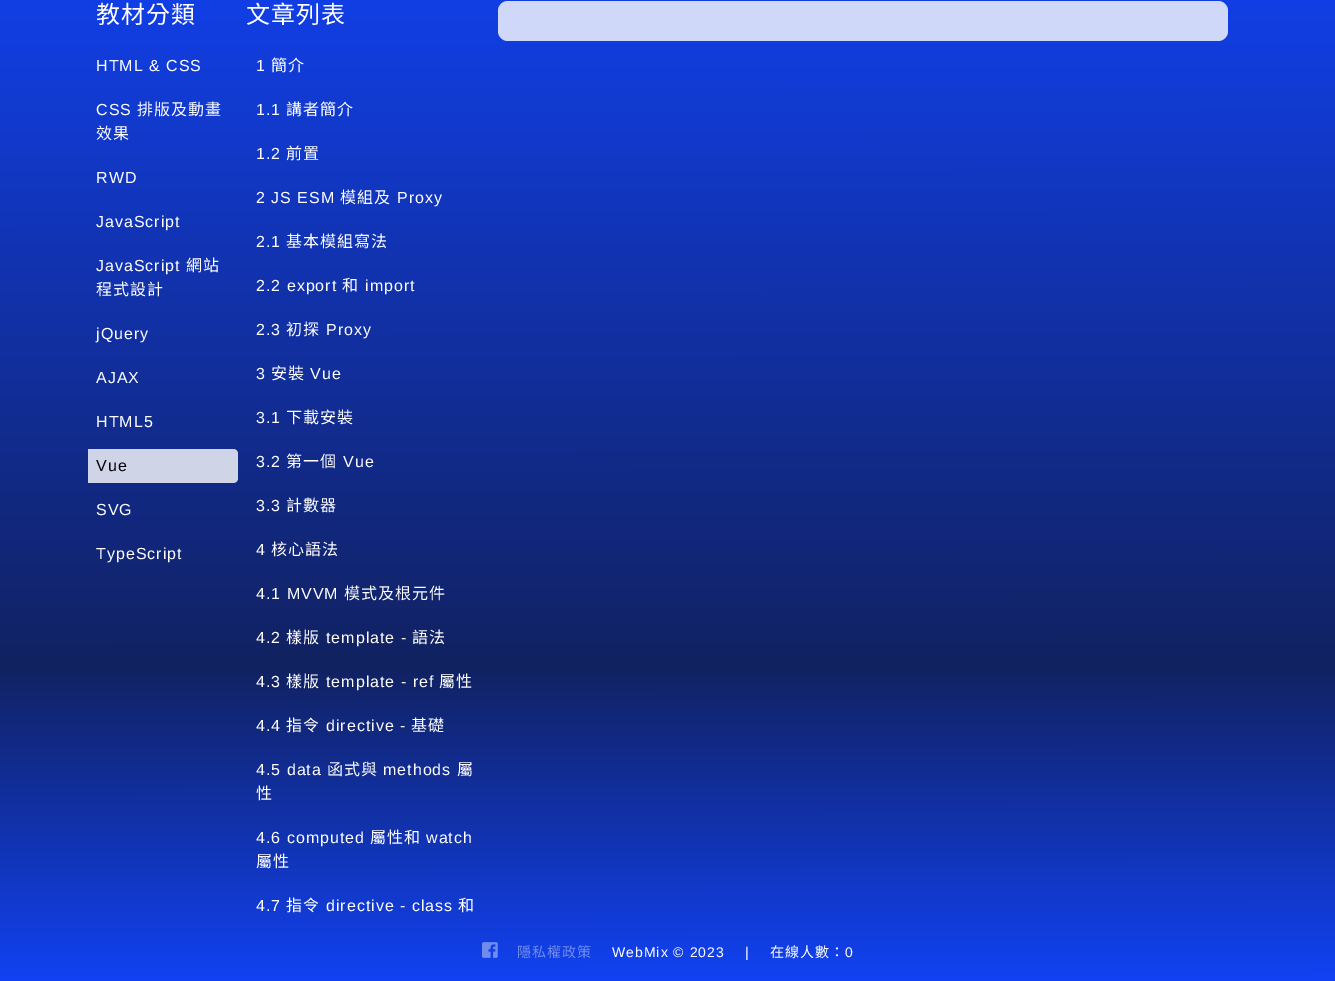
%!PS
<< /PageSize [1335 981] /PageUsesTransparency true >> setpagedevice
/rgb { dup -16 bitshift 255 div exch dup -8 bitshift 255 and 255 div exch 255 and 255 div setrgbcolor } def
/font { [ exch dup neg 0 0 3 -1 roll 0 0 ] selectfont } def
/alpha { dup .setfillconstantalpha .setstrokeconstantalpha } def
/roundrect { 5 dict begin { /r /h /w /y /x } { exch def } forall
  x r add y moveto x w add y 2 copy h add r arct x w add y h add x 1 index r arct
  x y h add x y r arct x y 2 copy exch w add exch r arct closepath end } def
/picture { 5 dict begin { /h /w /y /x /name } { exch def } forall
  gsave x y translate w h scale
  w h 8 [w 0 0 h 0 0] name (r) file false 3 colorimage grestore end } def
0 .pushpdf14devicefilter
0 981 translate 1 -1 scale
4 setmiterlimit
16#FFFFFF rgb
0 0 1335 981 rectfill
gsave 0 0 moveto 1335 0 lineto 1335 981 lineto 0 981 lineto closepath clip newpath
<< /ShadingType 2 /ColorSpace /DeviceRGB /Coords [667 -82 668 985] /Extend [true true] /Function << /FunctionType 3 /Domain [0 1] /Functions [<< /FunctionType 2 /Domain [0 1] /C0 [0.067 0.259 0.961] /C1 [0.067 0.133 0.38] /N 1 >> << /FunctionType 2 /Domain [0 1] /C0 [0.067 0.133 0.38] /C1 [0.067 0.259 0.961] /N 1 >>] /Bounds [0.7] /Encode [0 1 0 1] >> >> shfill grestore
/NotoSansTC-Regular 24 font
96 23 moveto 1 0 (教材分類) ashow
/LiberationSans-Regular 16 font
96 71 moveto 1 0 (HTML & CSS) ashow
96 115 moveto 1 0 (CSS) ashow
/NotoSansTC-Regular 16 font
137 115 moveto 1 0 (排版及動畫) ashow
96 139 moveto 1 0 (效果) ashow
/LiberationSans-Regular 16 font
96 183 moveto 1 0 (RWD) ashow
96 227 moveto 1 0 (JavaScript) ashow
96 271 moveto 1 0 (JavaScript) ashow
/NotoSansTC-Regular 16 font
186 271 moveto 1 0 (網站) ashow
96 295 moveto 1 0 (程式設計) ashow
/LiberationSans-Regular 16 font
96 339 moveto 1 0 (jQuery) ashow
96 383 moveto 1 0 (AJAX) ashow
96 427 moveto 1 0 (HTML5) ashow
0.8 alpha
88 449 moveto 233 449 lineto 236 449 238 451 238 454 curveto 238 478 lineto 238 481 236 483 233 483 curveto 88 483 lineto closepath fill
1 alpha
16#000000 rgb
96 471 moveto 1 0 (Vue) ashow
16#FFFFFF rgb
96 515 moveto 1 0 (SVG) ashow
96 559 moveto 1 0 (TypeScript) ashow
/NotoSansTC-Regular 24 font
246 23 moveto 1 0 (文章列表) ashow
/LiberationSans-Regular 16 font
256 71 moveto 1 0 (1) ashow
/NotoSansTC-Regular 16 font
271 71 moveto 1 0 (簡介) ashow
/LiberationSans-Regular 16 font
256 115 moveto 1 0 (1.1) ashow
/NotoSansTC-Regular 16 font
286 115 moveto 1 0 (講者簡介) ashow
/LiberationSans-Regular 16 font
256 159 moveto 1 0 (1.2) ashow
/NotoSansTC-Regular 16 font
286 159 moveto 1 0 (前置) ashow
/LiberationSans-Regular 16 font
256 203 moveto 1 0 (2 JS ESM) ashow
/NotoSansTC-Regular 16 font
340 203 moveto 1 0 (模組及) ashow
/LiberationSans-Regular 16 font
397 203 moveto 1 0 (Proxy) ashow
256 247 moveto 1 0 (2.1) ashow
/NotoSansTC-Regular 16 font
286 247 moveto 1 0 (基本模組寫法) ashow
/LiberationSans-Regular 16 font
256 291 moveto 1 0 (2.2 export) ashow
/NotoSansTC-Regular 16 font
342 291 moveto 1 0 (和) ashow
/LiberationSans-Regular 16 font
365 291 moveto 1 0 (import) ashow
256 335 moveto 1 0 (2.3) ashow
/NotoSansTC-Regular 16 font
286 335 moveto 1 0 (初探) ashow
/LiberationSans-Regular 16 font
326 335 moveto 1 0 (Proxy) ashow
256 379 moveto 1 0 (3) ashow
/NotoSansTC-Regular 16 font
271 379 moveto 1 0 (安裝) ashow
/LiberationSans-Regular 16 font
310 379 moveto 1 0 (Vue) ashow
256 423 moveto 1 0 (3.1) ashow
/NotoSansTC-Regular 16 font
286 423 moveto 1 0 (下載安裝) ashow
/LiberationSans-Regular 16 font
256 467 moveto 1 0 (3.2) ashow
/NotoSansTC-Regular 16 font
286 467 moveto 1 0 (第一個) ashow
/LiberationSans-Regular 16 font
343 467 moveto 1 0 (Vue) ashow
256 511 moveto 1 0 (3.3) ashow
/NotoSansTC-Regular 16 font
286 511 moveto 1 0 (計數器) ashow
/LiberationSans-Regular 16 font
256 555 moveto 1 0 (4) ashow
/NotoSansTC-Regular 16 font
271 555 moveto 1 0 (核心語法) ashow
/LiberationSans-Regular 16 font
256 599 moveto 1 0 (4.1 MVVM) ashow
/NotoSansTC-Regular 16 font
344 599 moveto 1 0 (模式及根元件) ashow
/LiberationSans-Regular 16 font
256 643 moveto 1 0 (4.2) ashow
/NotoSansTC-Regular 16 font
286 643 moveto 1 0 (樣版) ashow
/LiberationSans-Regular 16 font
326 643 moveto 1 0 (template -) ashow
/NotoSansTC-Regular 16 font
412 643 moveto 1 0 (語法) ashow
/LiberationSans-Regular 16 font
256 687 moveto 1 0 (4.3) ashow
/NotoSansTC-Regular 16 font
286 687 moveto 1 0 (樣版) ashow
/LiberationSans-Regular 16 font
326 687 moveto 1 0 (template - ref) ashow
/NotoSansTC-Regular 16 font
439 687 moveto 1 0 (屬性) ashow
/LiberationSans-Regular 16 font
256 731 moveto 1 0 (4.4) ashow
/NotoSansTC-Regular 16 font
286 731 moveto 1 0 (指令) ashow
/LiberationSans-Regular 16 font
326 731 moveto 1 0 (directive -) ashow
/NotoSansTC-Regular 16 font
411 731 moveto 1 0 (基礎) ashow
/LiberationSans-Regular 16 font
256 775 moveto 1 0 (4.5 data) ashow
/NotoSansTC-Regular 16 font
327 775 moveto 1 0 (函式與) ashow
/LiberationSans-Regular 16 font
383 775 moveto 1 0 (methods) ashow
/NotoSansTC-Regular 16 font
457 775 moveto 1 0 (屬) ashow
256 799 moveto 1 0 (性) ashow
/LiberationSans-Regular 16 font
256 843 moveto 1 0 (4.6 computed) ashow
/NotoSansTC-Regular 16 font
370 843 moveto 1 0 (屬性和) ashow
/LiberationSans-Regular 16 font
426 843 moveto 1 0 (watch) ashow
/NotoSansTC-Regular 16 font
256 867 moveto 1 0 (屬性) ashow
/LiberationSans-Regular 16 font
256 911 moveto 1 0 (4.7) ashow
/NotoSansTC-Regular 16 font
286 911 moveto 1 0 (指令) ashow
/LiberationSans-Regular 16 font
326 911 moveto 1 0 (directive - class) ashow
/NotoSansTC-Regular 16 font
458 911 moveto 1 0 (和) ashow
0.8 alpha
498 1 730 40 10 roundrect fill
1 alpha
(pic1.raw) 482 942 16 16 picture
/NotoSansTC-Regular 14 font
16#708CF0 rgb
517 957 moveto 1 0 (隱私權政策) ashow
/LiberationSans-Regular 14 font
16#FFFFFF rgb
612 957 moveto 1 0 (WebMix © 2023) ashow
745 957 moveto 1 0 (|) ashow
/NotoSansTC-Regular 14 font
770 957 moveto 1 0 (在線人數：) ashow
/LiberationSans-Regular 14 font
845 957 moveto 1 0 (0) ashow
.poppdf14devicefilter showpage
